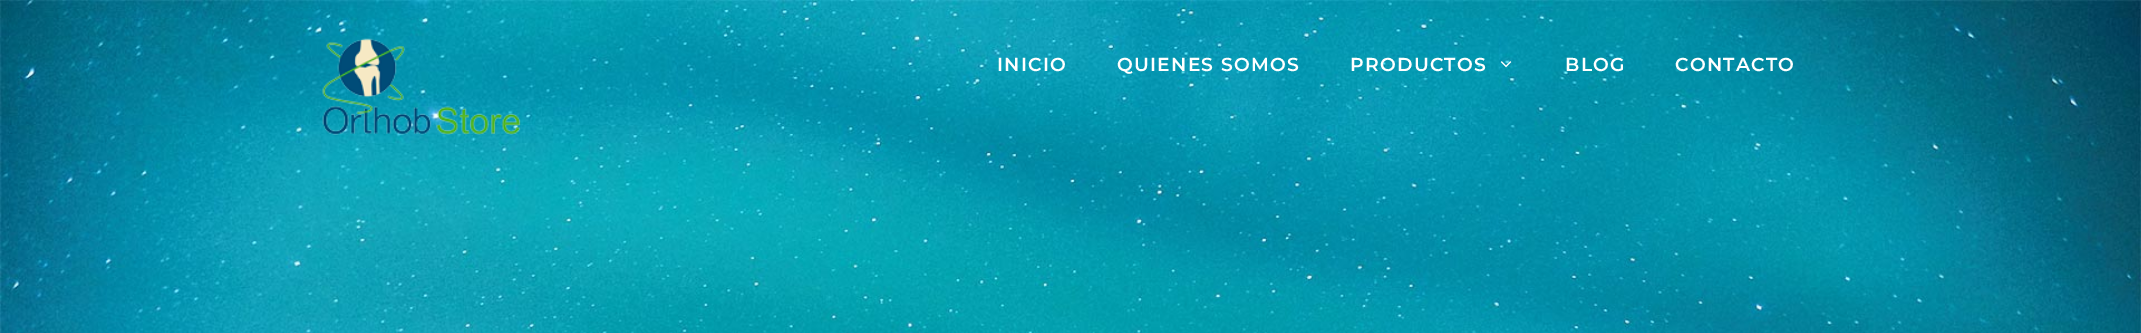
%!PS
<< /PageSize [2141 333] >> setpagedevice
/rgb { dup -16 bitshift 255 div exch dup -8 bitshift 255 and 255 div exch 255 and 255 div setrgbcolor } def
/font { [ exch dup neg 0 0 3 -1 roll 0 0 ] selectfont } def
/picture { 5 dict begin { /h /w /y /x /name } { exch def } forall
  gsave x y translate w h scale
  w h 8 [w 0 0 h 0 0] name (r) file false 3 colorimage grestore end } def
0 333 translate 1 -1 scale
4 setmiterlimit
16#FFFFFF rgb
0 0 2141 333 rectfill
(pic1.raw) 0 0 2141 333 picture
(pic2.raw) 322 38 199 97 picture
/Montserrat-SemiBold 18.75 font
997 71 moveto 1.25 0 (INICIO) ashow
1117 71 moveto 1.25 0 (QUIENES SOMOS) ashow
1350 71 moveto 1.25 0 (PRODUCTOS) ashow
(pic3.raw) 1500 61 12 7 picture
1565 71 moveto 1.25 0 (BLOG) ashow
1675 71 moveto 1.25 0 (CONTACTO) ashow
showpage
